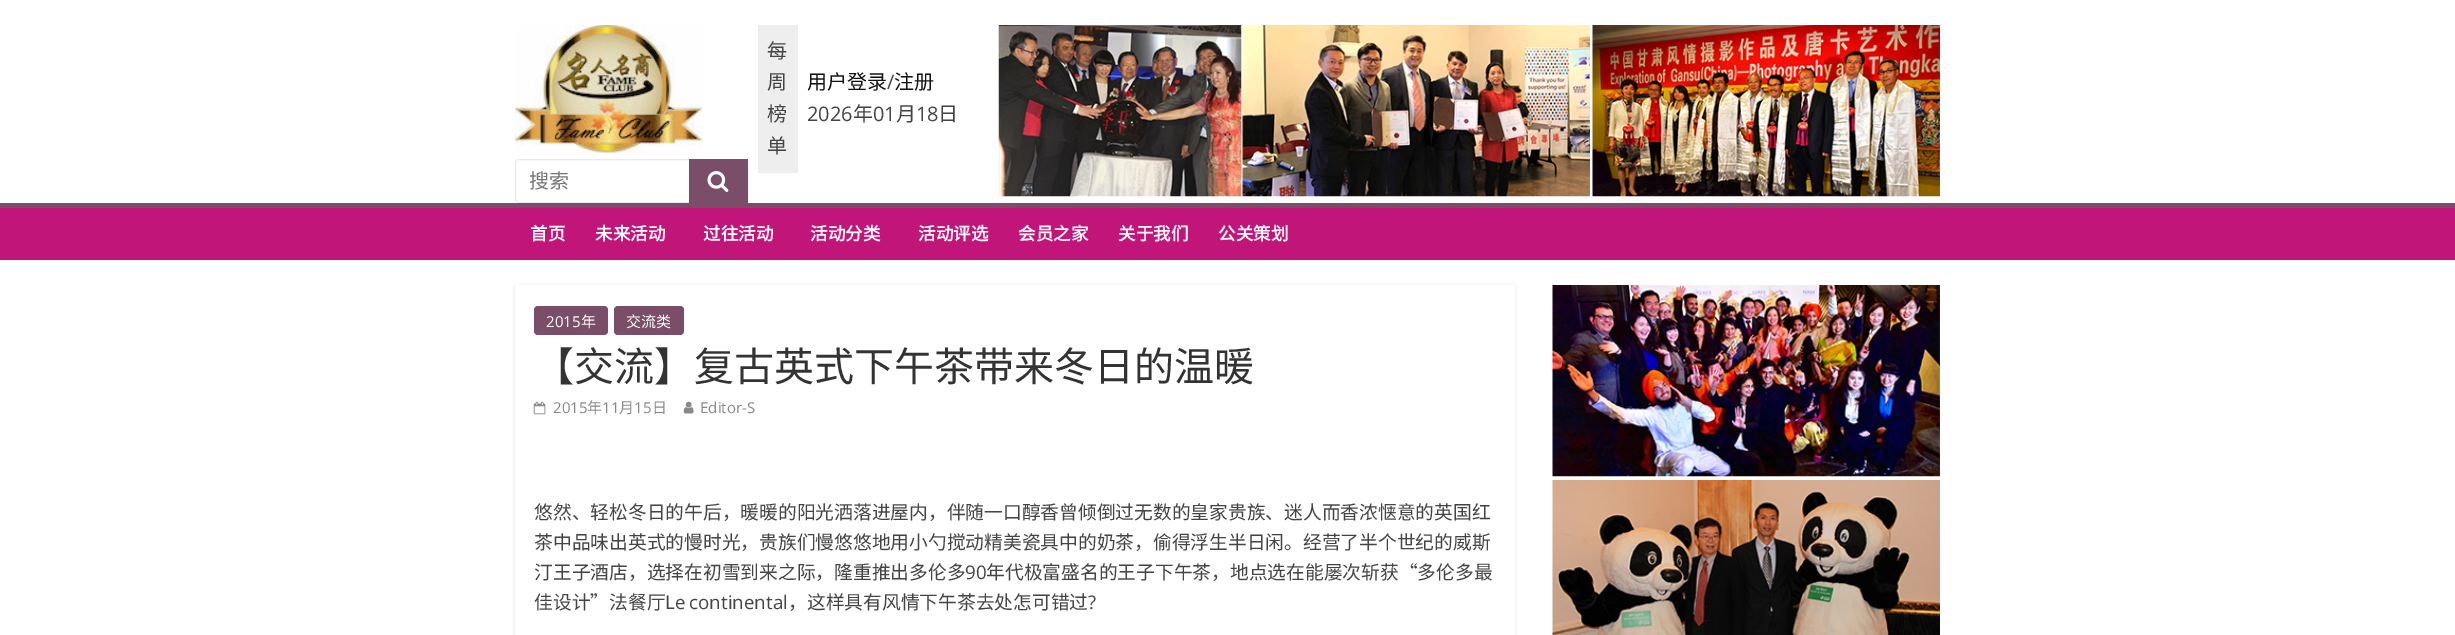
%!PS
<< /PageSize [2455 635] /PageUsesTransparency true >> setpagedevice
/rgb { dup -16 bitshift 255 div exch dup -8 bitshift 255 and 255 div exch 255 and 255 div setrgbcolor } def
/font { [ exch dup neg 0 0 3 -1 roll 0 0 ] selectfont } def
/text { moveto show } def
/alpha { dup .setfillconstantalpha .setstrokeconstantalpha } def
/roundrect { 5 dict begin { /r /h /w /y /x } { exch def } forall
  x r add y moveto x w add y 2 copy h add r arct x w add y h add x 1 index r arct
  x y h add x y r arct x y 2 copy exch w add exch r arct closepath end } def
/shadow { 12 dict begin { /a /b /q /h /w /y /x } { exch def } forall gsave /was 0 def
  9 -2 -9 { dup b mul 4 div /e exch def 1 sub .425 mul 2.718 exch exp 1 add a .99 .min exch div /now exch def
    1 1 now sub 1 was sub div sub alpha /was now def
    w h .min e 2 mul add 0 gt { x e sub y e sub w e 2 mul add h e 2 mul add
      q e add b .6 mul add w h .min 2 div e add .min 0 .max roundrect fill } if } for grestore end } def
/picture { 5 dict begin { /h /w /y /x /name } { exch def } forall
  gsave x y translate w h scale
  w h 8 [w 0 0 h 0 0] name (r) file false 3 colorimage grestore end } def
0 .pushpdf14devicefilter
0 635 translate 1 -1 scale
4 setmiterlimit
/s1 { /NotoSansCJKSC-Regular 20 font 16#444444 rgb } def
/s2 { /NotoSansCJKSC-Regular 20 font 16#111111 rgb } def
/s3 { /OpenSans-Regular 20 font 16#444444 rgb } def
/s4 { /NotoSansCJKSC-Regular 20 font 16#757575 rgb } def
/s5 { /NotoSansCJKSC-Bold 17.5 font 16#FFFFFF rgb } def
/s6 { /OpenSans-Regular 15 font 16#FFFFFF rgb } def
/s7 { /NotoSansCJKSC-Regular 15 font 16#FFFFFF rgb } def
/s8 { /NotoSansCJKSC-Regular 40 font 16#333333 rgb } def
/s9 { /OpenSans-Regular 15 font 16#888888 rgb } def
/s10 { /NotoSansCJKSC-Regular 15 font 16#888888 rgb } def
/s11 { /NotoSansCJKSC-Regular 18.75 font 16#444444 rgb } def
/s12 { /OpenSans-Regular 18.75 font 16#444444 rgb } def
16#FFFFFF rgb
0 0 2455 635 rectfill
16#EEEEEE rgb
758 25 40 148 rectfill
s1
(每) 767 58 text
(周) 767 89 text
(榜) 767 121 text
(单) 767 153 text
s2
(用户登录) 807 89 text
s3
(/) 887 89 text
s2
(注册) 894 89 text
s3
(2026) 807 121 text
s1
(年) 853 121 text
s3
(01) 873 121 text
s1
(月) 896 121 text
s3
(18) 916 121 text
s1
(日) 938 121 text
(pic1.raw) 998 25 244 172 picture
(pic2.raw) 515 25 188 128 picture
16#EAEAEA rgb
515.5 159.5 232 43 3.5 roundrect stroke
s4
(搜索) 529 188 text
16#7A4D68 rgb
689 159 59 44 rectfill
(pic3.raw) 707 171 22 21 picture
(pic4.raw) 1242 25 348 172 picture
(pic5.raw) 1592 25 348 172 picture
16#C11579 rgb
0 208 2455 52 rectfill
16#7A4D68 rgb
0 203 2455 5 rectfill
s5
(首页) 530 240 text
(未来活动) 595 240 text
(过往活动) 703 240 text
(活动分类) 810 240 text
(活动评选) 918 240 text
(会员之家) 1018 240 text
(关于我们) 1118 240 text
(公关策划) 1218 240 text
gsave
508 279 moveto 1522 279 lineto 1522 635 lineto 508 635 lineto closepath 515 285 moveto 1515 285 lineto 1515 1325 lineto 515 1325 lineto closepath eoclip newpath
16#000000 rgb
515 286 1000 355 0 2 0.1 shadow
grestore
16#7A4D68 rgb
534 306 74 29 4 roundrect fill
s6
(2015) 546 327 text
s7
(年) 581 327 text
16#7A4D68 rgb
614 306 70 29 4 roundrect fill
s7
(交流类) 626 327 text
s8
(【交流】复古英式下午茶带来冬日的温暖) 534 381 text
(pic6.raw) 533 401 13 14 picture
s9
(2015) 553 413 text
s10
(年) 587 413 text
s9
(11) 602 413 text
s10
(月) 619 413 text
s9
(15) 634 413 text
s10
(日) 652 413 text
(pic7.raw) 683 401 11 13 picture
s9
(Editor-S) 700 413 text
s11
(悠然、轻松冬日的午后，暖暖的阳光洒落进屋内，伴随一口醇香曾倾倒过无数的皇家贵族、迷人而香浓惬意的英国红) 534 519 text
(茶中品味出英式的慢时光，贵族们慢悠悠地用小勺搅动精美瓷具中的奶茶，偷得浮生半日闲。经营了半个世纪的威斯) 534 549 text
(汀王子酒店，选择在初雪到来之际，隆重推出多伦多) 534 579 text
s12
(90) 965 579 text
s11
(年代极富盛名的王子下午茶，地点选在能屡次斩获“多伦多最) 986 579 text
(佳设计”法餐厅) 534 609 text
/OpenSans-Regular 18.75 font
665 609 moveto -1 0 32 (Le continental) widthshow
s11
(，这样具有风情下午茶去处怎可错过) 788 609 text
s12
(?) 1088 609 text
(pic8.raw) 1552 285 388 192 picture
(pic9.raw) 1552 480 388 155 picture
.poppdf14devicefilter showpage
